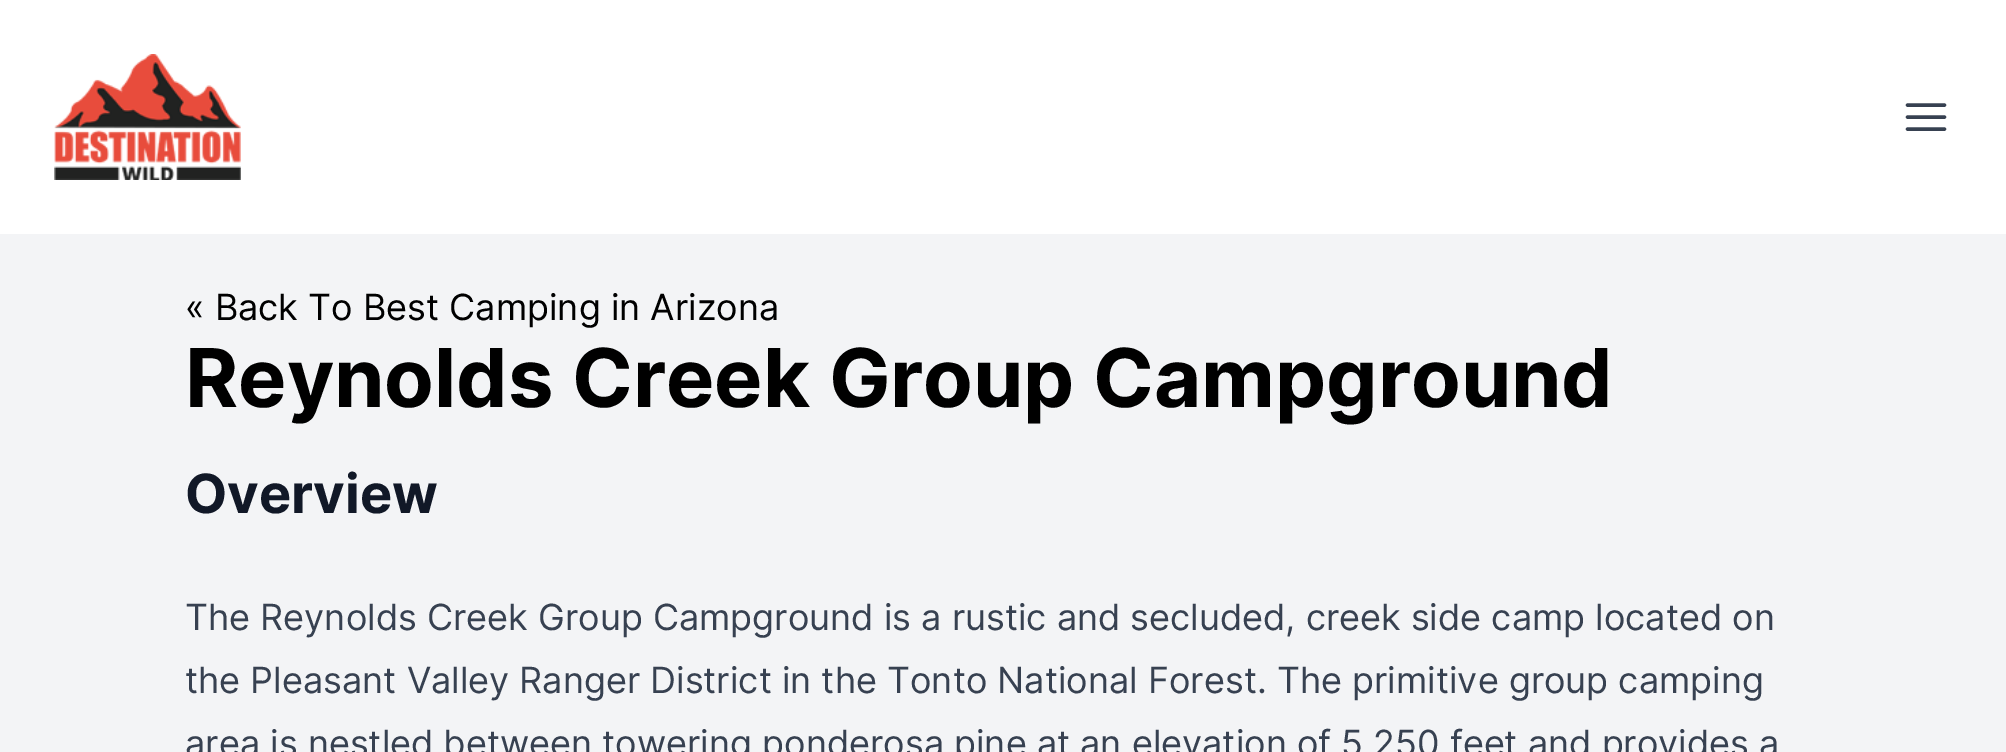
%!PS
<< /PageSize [2006 752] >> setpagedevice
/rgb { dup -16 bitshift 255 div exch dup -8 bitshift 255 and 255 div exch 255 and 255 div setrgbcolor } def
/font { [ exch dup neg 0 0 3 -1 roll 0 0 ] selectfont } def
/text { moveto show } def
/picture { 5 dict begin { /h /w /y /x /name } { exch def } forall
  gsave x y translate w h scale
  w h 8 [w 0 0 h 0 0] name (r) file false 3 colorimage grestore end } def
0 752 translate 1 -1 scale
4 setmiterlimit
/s1 { /Inter-Regular 36 font 16#000000 rgb } def
/s2 { /Inter-Bold 81 font 16#000000 rgb } def
/s3 { /Inter-Bold 54 font 16#111827 rgb } def
/s4 { /Inter-Regular 36 font 16#374151 rgb } def
16#F3F4F6 rgb
0 0 2006 752 rectfill
16#FFFFFF rgb
0 0 2006 234 rectfill
(pic1.raw) 54 54 187 126 picture
16#374151 rgb
3.4 setlinewidth
1 setlinecap
1 setlinejoin
1907.5 105 moveto 1944.5 105 lineto 1907.5 117 moveto 1944.5 117 lineto 1907.5 129 moveto 1944.5 129 lineto stroke
s1
(« Back To Best Camping in Arizona) 185 320 text
s2
(Reynolds Creek Group Campground) 185 407 text
s3
(Overview) 185 513 text
s4
(The Reynolds Creek Group Campground is a rustic and secluded, creek side camp located on) 185 630 text
(the Pleasant Valley Ranger District in the Tonto National Forest. The primitive group camping) 185 693 text
(area is nestled between towering ponderosa pine at an elevation of 5,250 feet and provides a) 185 756 text
showpage
